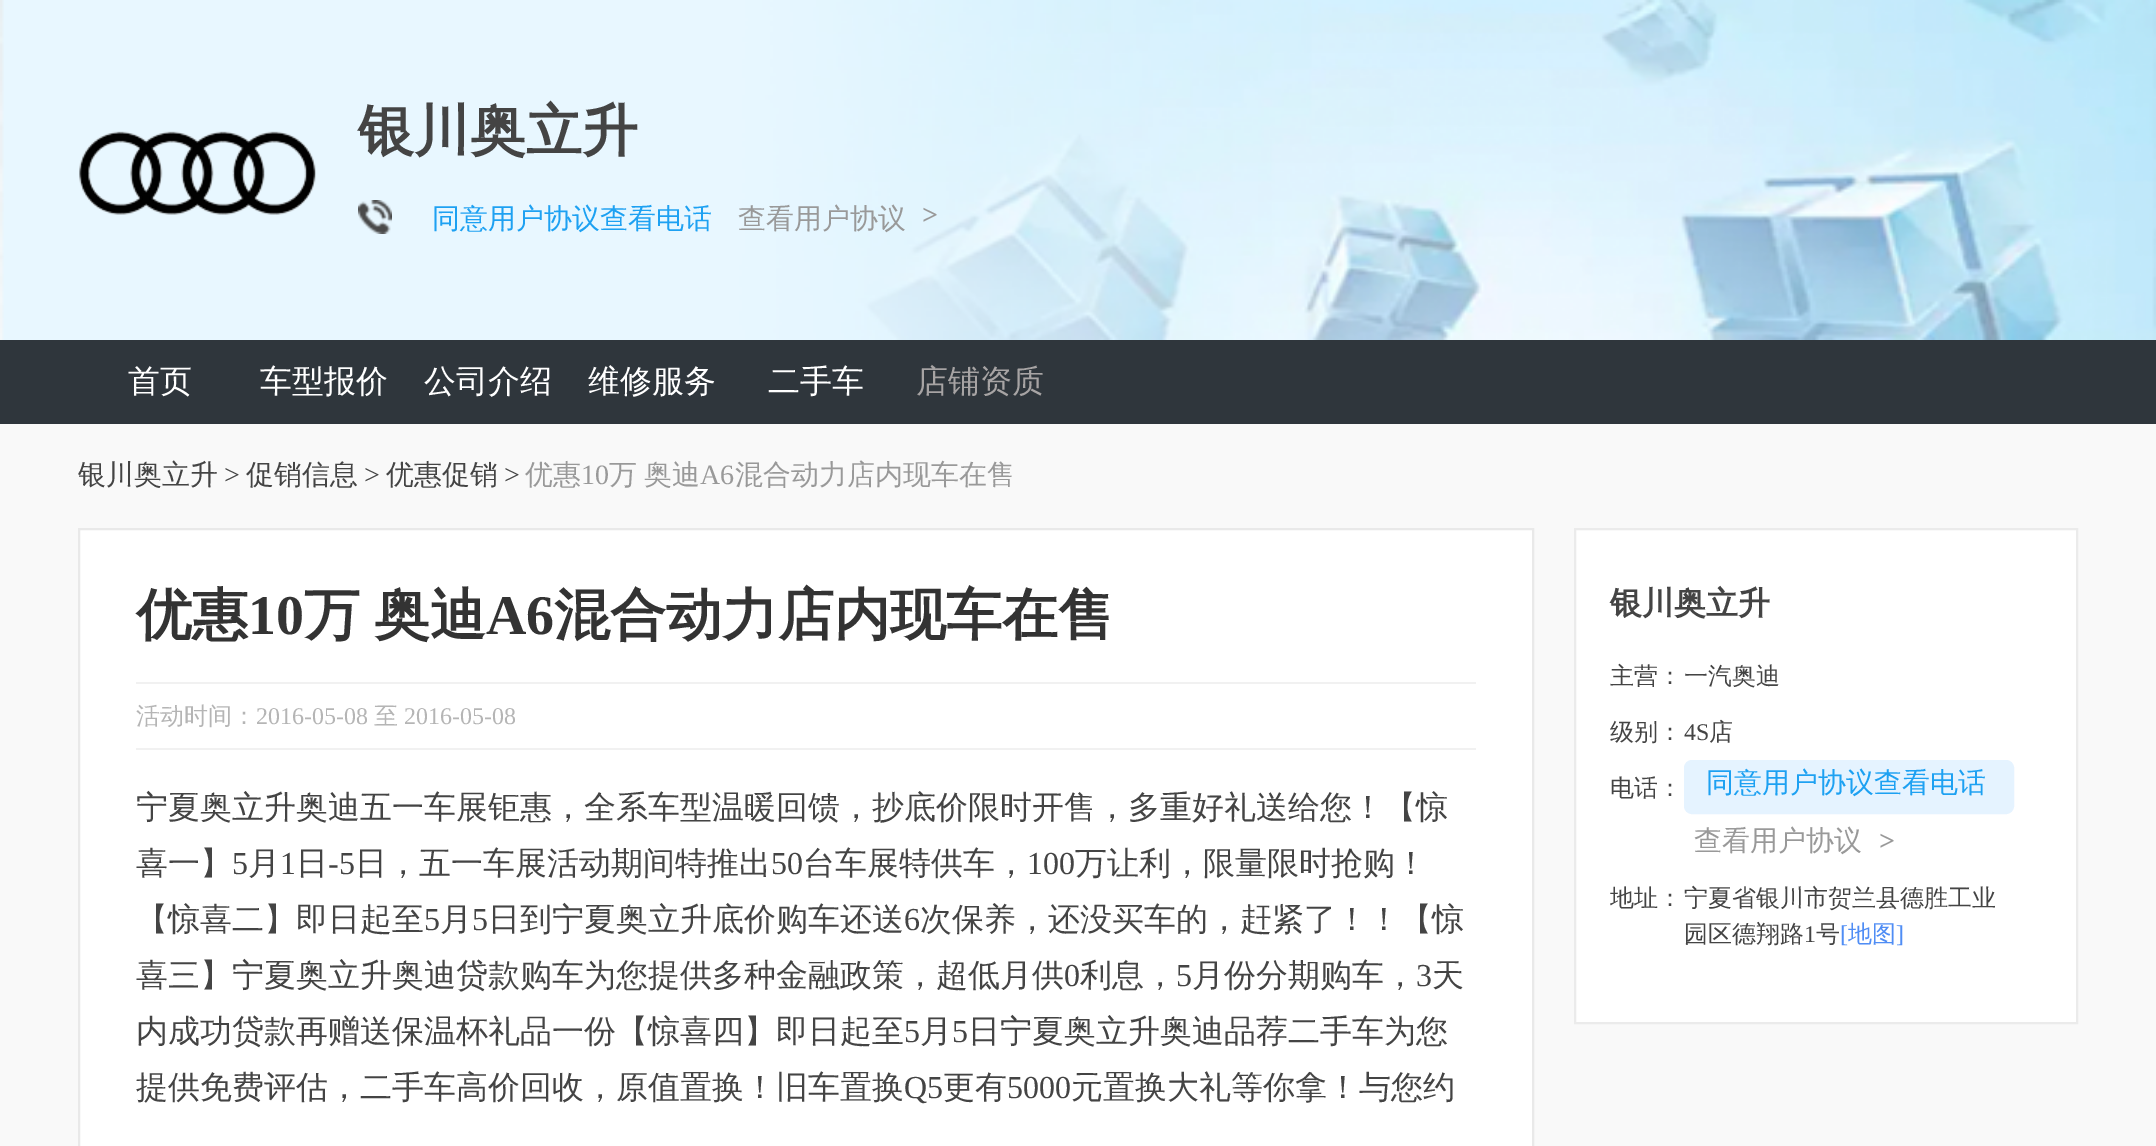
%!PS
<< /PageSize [2156 1146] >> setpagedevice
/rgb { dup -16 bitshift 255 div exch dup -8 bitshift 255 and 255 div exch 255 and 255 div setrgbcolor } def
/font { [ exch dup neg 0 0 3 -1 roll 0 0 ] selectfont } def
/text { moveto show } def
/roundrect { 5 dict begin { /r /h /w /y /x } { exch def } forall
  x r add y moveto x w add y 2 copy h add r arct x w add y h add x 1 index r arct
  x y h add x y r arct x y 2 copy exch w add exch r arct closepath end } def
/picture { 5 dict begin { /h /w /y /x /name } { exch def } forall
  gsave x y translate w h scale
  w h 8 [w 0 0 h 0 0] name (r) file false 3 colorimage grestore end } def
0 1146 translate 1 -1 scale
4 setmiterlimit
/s1 { /WenQuanYiZenHei-Bold 56 font 16#444444 rgb } def
/s2 { /WenQuanYiZenHei-Medium 28 font 16#1DA1F2 rgb } def
/s3 { /WenQuanYiZenHei-Medium 28 font 16#999999 rgb } def
/s4 { /LiberationSerif-Bold 28 font 16#999999 rgb } def
/s5 { /WenQuanYiZenHei-Medium 32 font 16#FFFFFF rgb } def
/s6 { /WenQuanYiZenHei-Medium 32 font 16#A7A4A4 rgb } def
/s7 { /WenQuanYiZenHei-Medium 28 font 16#444444 rgb } def
/s8 { /LiberationSerif-Regular 28 font 16#444444 rgb } def
/s9 { /LiberationSerif-Regular 28 font 16#999999 rgb } def
/s10 { /WenQuanYiZenHei-Bold 56 font 16#333333 rgb } def
/s11 { /LiberationSerif-Bold 56 font 16#333333 rgb } def
/s12 { /WenQuanYiZenHei-Medium 24 font 16#B5B5B5 rgb } def
/s13 { /LiberationSerif-Regular 24 font 16#B5B5B5 rgb } def
/s14 { /WenQuanYiZenHei-Medium 32 font 16#444444 rgb } def
/s15 { /LiberationSerif-Regular 32 font 16#444444 rgb } def
/s16 { /WenQuanYiZenHei-Bold 32 font 16#444444 rgb } def
/s17 { /WenQuanYiZenHei-Medium 24 font 16#444444 rgb } def
/s18 { /LiberationSerif-Regular 24 font 16#444444 rgb } def
/s19 { /LiberationSerif-Regular 24 font 16#4F8DF5 rgb } def
/s20 { /WenQuanYiZenHei-Medium 24 font 16#4F8DF5 rgb } def
16#F9F9F9 rgb
0 0 2156 1146 rectfill
(pic1.raw) 0 0 2156 340 picture
(pic2.raw) 79 131 237 84 picture
s1
(银川奥立升) 358 150 text
(pic3.raw) 358 200 34 34 picture
s2
(同意用户协议查看电话) 432 228 text
s3
(查看用户协议) 738 228 text
s4
(>) 922 224 text
16#2F363C rgb
0 340 2156 84 rectfill
s5
(首页) 128 392 text
(车型报价) 260 392 text
(公司介绍) 424 392 text
(维修服务) 588 392 text
(二手车) 768 392 text
s6
(店铺资质) 916 392 text
s7
(银川奥立升) 78 484 text
s8
(>) 224 484 text
s7
(促销信息) 246 484 text
s8
(>) 364 484 text
s7
(优惠促销) 386 484 text
s8
(>) 504 484 text
s3
(优惠) 525 484 text
s9
(10) 581 484 text
/WenQuanYiZenHei-Medium 28 font
609 484 moveto -1 0 32 (万 奥迪) widthshow
s9
(A6) 700 484 text
s3
(混合动力店内现车在售) 735 484 text
16#FFFFFF rgb
79 529 moveto 1533 529 lineto 1533 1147 lineto 79 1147 lineto closepath gsave fill grestore
16#E9E9E9 rgb
2 setlinewidth
stroke
s10
(优惠) 136 634 text
s11
(10) 248 634 text
/WenQuanYiZenHei-Bold 56 font
304 634 moveto -3 0 32 (万 奥迪) widthshow
s11
(A6) 486 634 text
s10
(混合动力店内现车在售) 554 634 text
16#F1F1F1 rgb
136 682 1340 2 rectfill
136 748 1340 2 rectfill
s12
(活动时间：) 136 724 text
s13
(2016-05-08) 256 724 text
s12
(至) 374 724 text
s13
(2016-05-08) 404 724 text
s14
(宁夏奥立升奥迪五一车展钜惠，全系车型温暖回馈，抄底价限时开售，多重好礼送给您！【惊) 136 818 text
(喜一】) 136 874 text
s15
(5) 232 874 text
s14
(月) 248 874 text
s15
(1) 280 874 text
s14
(日) 296 874 text
s15
(-5) 328 874 text
s14
(日，五一车展活动期间特推出) 355 874 text
s15
(50) 771 874 text
s14
(台车展特供车，) 803 874 text
s15
(100) 1027 874 text
s14
(万让利，限量限时抢购！) 1075 874 text
(【惊喜二】即日起至) 136 930 text
s15
(5) 424 930 text
s14
(月) 440 930 text
s15
(5) 472 930 text
s14
(日到宁夏奥立升底价购车还送) 488 930 text
s15
(6) 904 930 text
s14
(次保养，还没买车的，赶紧了！！【惊) 920 930 text
(喜三】宁夏奥立升奥迪贷款购车为您提供多种金融政策，超低月供) 136 986 text
s15
(0) 1064 986 text
s14
(利息，) 1080 986 text
s15
(5) 1176 986 text
s14
(月份分期购车，) 1192 986 text
s15
(3) 1416 986 text
s14
(天) 1432 986 text
(内成功贷款再赠送保温杯礼品一份【惊喜四】即日起至) 136 1042 text
s15
(5) 904 1042 text
s14
(月) 920 1042 text
s15
(5) 952 1042 text
s14
(日宁夏奥立升奥迪品荐二手车为您) 968 1042 text
(提供免费评估，二手车高价回收，原值置换！旧车置换) 136 1098 text
s15
(Q5) 904 1098 text
s14
(更有) 943 1098 text
s15
(5000) 1007 1098 text
s14
(元置换大礼等你拿！与您约) 1071 1098 text
16#FFFFFF rgb
1575 529 moveto 2077 529 lineto 2077 1023 lineto 1575 1023 lineto closepath gsave fill grestore
16#EBEBEB rgb
stroke
s16
(银川奥立升) 1610 614 text
s17
(主营：) 1610 684 text
(一汽奥迪) 1684 684 text
(级别：) 1610 740 text
s18
(4S) 1684 740 text
s17
(店) 1709 740 text
(电话：) 1610 796 text
16#E5F3FF rgb
1685 761 328 52 7 roundrect gsave fill grestore
stroke
s2
(同意用户协议查看电话) 1706 792 text
s3
(查看用户协议) 1694 850 text
s4
(>) 1879 850 text
s17
(地址：) 1610 906 text
(宁夏省银川市贺兰县德胜工业) 1684 906 text
(园区德翔路) 1684 942 text
s18
(1) 1804 942 text
s17
(号) 1816 942 text
s19
([) 1840 942 text
s20
(地图) 1848 942 text
s19
(]) 1896 942 text
showpage
